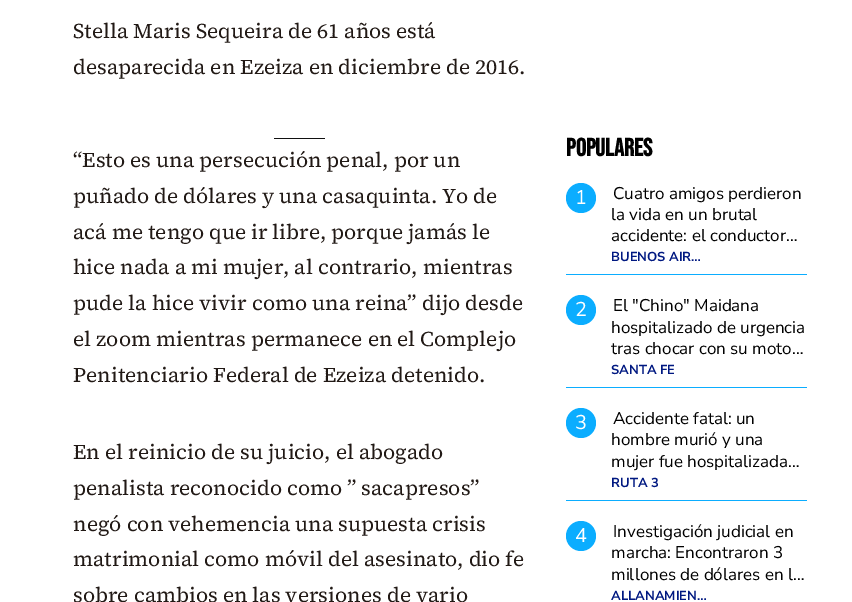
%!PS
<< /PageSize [852 602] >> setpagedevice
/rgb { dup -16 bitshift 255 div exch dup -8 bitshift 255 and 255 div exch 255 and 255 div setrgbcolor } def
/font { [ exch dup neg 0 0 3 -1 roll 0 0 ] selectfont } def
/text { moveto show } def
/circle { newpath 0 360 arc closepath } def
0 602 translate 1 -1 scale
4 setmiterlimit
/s1 { /SourceSerif4-Regular 21 font 16#211915 rgb } def
/s2 { /BebasNeue-Bold 25 font 16#000000 rgb } def
/s3 { /NunitoSans-Regular 20 font 16#FFFFFF rgb } def
/s4 { /NunitoSans-Regular 17 font 16#000000 rgb } def
/s5 { /NunitoSans-Bold 13 font 16#001881 rgb } def
16#FFFFFF rgb
0 0 852 602 rectfill
s1
(Stella Maris Sequeira de 61 años está) 73 38 text
(desaparecida en Ezeiza en diciembre de 2016.) 73 74 text
16#111111 rgb
274 138 51 1 rectfill
s1
(“Esto es una persecución penal, por un) 73 167 text
(puñado de dólares y una casaquinta. Yo de) 73 203 text
(acá me tengo que ir libre, porque jamás le) 73 239 text
(hice nada a mi mujer, al contrario, mientras) 73 274 text
(pude la hice vivir como una reina” dijo desde) 73 310 text
(el zoom mientras permanece en el Complejo) 73 346 text
(Penitenciario Federal de Ezeiza detenido.) 73 382 text
(En el reinicio de su juicio, el abogado) 73 459 text
(penalista reconocido como ” sacapresos”) 73 495 text
(negó con vehemencia una supuesta crisis) 73 531 text
(matrimonial como móvil del asesinato, dio fe) 73 566 text
(sobre cambios en las versiones de vario) 73 602 text
s2
(POPULARES) 566 156 text
16#0BADFF rgb
581 198 15 circle fill
s3
(1) 575 204 text
s4
(Cuatro amigos perdieron) 613 199 text
(la vida en un brutal) 611 220 text
(accidente: el conductor…) 611 241 text
s5
(BUENOS AIR…) 611 261 text
16#0BADFF rgb
566 274 241 1 rectfill
581 310 15 circle fill
s3
(2) 575 316 text
s4
(El "Chino" Maidana) 613 311 text
(hospitalizado de urgencia) 611 333 text
(tras chocar con su moto…) 611 354 text
s5
(SANTA FE) 611 374 text
16#0BADFF rgb
566 387 241 1 rectfill
581 423 15 circle fill
s3
(3) 575 429 text
s4
(Accidente fatal: un) 613 424 text
(hombre murió y una) 611 445 text
(mujer fue hospitalizada…) 611 467 text
s5
(RUTA 3) 611 487 text
16#0BADFF rgb
566 500 241 1 rectfill
581 536 15 circle fill
s3
(4) 575 542 text
s4
(Investigación judicial en) 613 537 text
(marcha: Encontraron 3) 611 558 text
(millones de dólares en l…) 611 580 text
s5
(ALLANAMIEN…) 611 600 text
showpage
